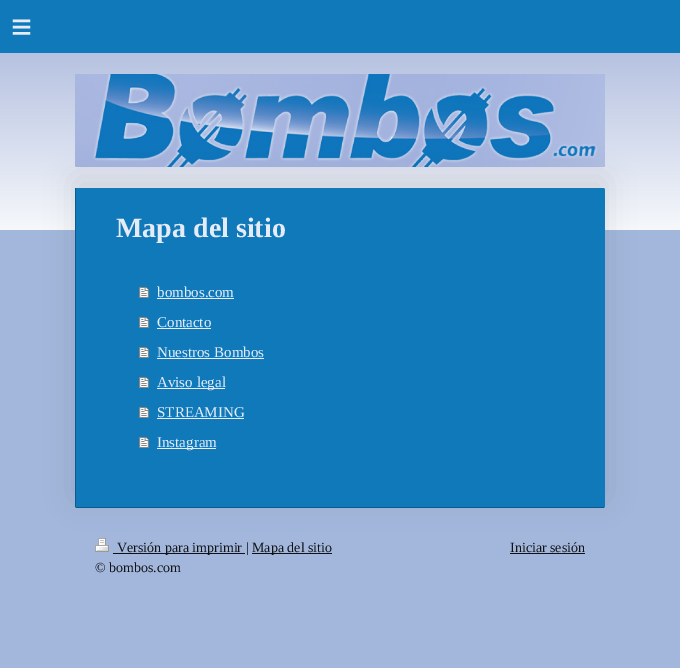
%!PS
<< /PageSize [680 668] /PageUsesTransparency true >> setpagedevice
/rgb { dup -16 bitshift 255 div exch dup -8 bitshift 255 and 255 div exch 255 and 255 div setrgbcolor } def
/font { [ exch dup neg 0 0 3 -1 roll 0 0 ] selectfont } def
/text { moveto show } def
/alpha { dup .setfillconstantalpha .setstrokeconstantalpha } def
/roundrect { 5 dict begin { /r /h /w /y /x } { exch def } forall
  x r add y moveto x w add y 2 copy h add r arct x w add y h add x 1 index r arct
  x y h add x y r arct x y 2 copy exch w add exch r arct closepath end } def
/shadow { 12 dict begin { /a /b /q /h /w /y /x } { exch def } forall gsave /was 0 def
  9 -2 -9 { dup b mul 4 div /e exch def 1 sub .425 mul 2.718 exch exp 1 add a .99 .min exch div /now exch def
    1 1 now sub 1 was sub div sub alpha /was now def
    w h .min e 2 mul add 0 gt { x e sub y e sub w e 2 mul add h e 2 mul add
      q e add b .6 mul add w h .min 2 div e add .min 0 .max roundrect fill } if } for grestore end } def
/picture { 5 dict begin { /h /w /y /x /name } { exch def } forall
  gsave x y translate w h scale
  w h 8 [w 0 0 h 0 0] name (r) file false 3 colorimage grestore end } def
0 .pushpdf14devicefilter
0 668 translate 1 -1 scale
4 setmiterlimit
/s1 { /LiberationSerif-Bold 28 font 16#E6ECF7 rgb } def
/s2 { /LiberationSerif-Regular 15 font 16#E6ECF7 rgb } def
/s3 { /LiberationSerif-Regular 14 font 16#101216 rgb } def
16#A3B7DC rgb
0 0 680 668 rectfill
16#0F79BA rgb
0 0 680 53 rectfill
/LiberationSans-Regular 36 font
16#E6ECF7 rgb
11 39 moveto 10 0 (≡) ashow
gsave 0 53 moveto 680 53 lineto 680 230 lineto 0 230 lineto closepath clip newpath
<< /ShadingType 2 /ColorSpace /DeviceRGB /Coords [0 230 0 53] /Extend [true true] /Function << /FunctionType 2 /Domain [0 1] /C0 [0.965 0.973 0.984] /C1 [0.714 0.761 0.882] /N 1 >> >> shfill grestore
(pic1.raw) 75 74 530 93 picture
16#000000 rgb
75 178 530 320 2 15 0.1 shadow
16#0F79BA rgb
75 188 530 320 2 roundrect fill
16#0B5A8B rgb
76 507 528 1 rectfill
75 188 1 319 rectfill
s1
(Mapa del sitio) 116 237 text
(pic2.raw) 139 287 10 11 picture
s2
(bombos.com) 157 297 text
157 298 77 1 rectfill
(pic2.raw) 139 317 10 11 picture
(Contacto) 157 327 text
157 328 54 1 rectfill
(pic2.raw) 139 347 10 11 picture
(Nuestros Bombos) 157 357 text
157 358 107 1 rectfill
(pic2.raw) 139 377 10 11 picture
157 388 68 1 rectfill
(Aviso legal) 157 387 text
(pic2.raw) 139 407 10 11 picture
(STREAMING) 157 417 text
157 418 87 1 rectfill
(pic2.raw) 139 437 10 11 picture
157 448 59 1 rectfill
(Instagram) 157 447 text
(pic3.raw) 95 538 14 14 picture
16#101216 rgb
113 553 132 1 rectfill
s3
(Versión para imprimir |) 117 552 text
252 553 80 1 rectfill
(Mapa del sitio) 252 552 text
(© bombos.com) 95 572 text
(Iniciar sesión) 510 552 text
510 553 75 1 rectfill
.poppdf14devicefilter showpage
